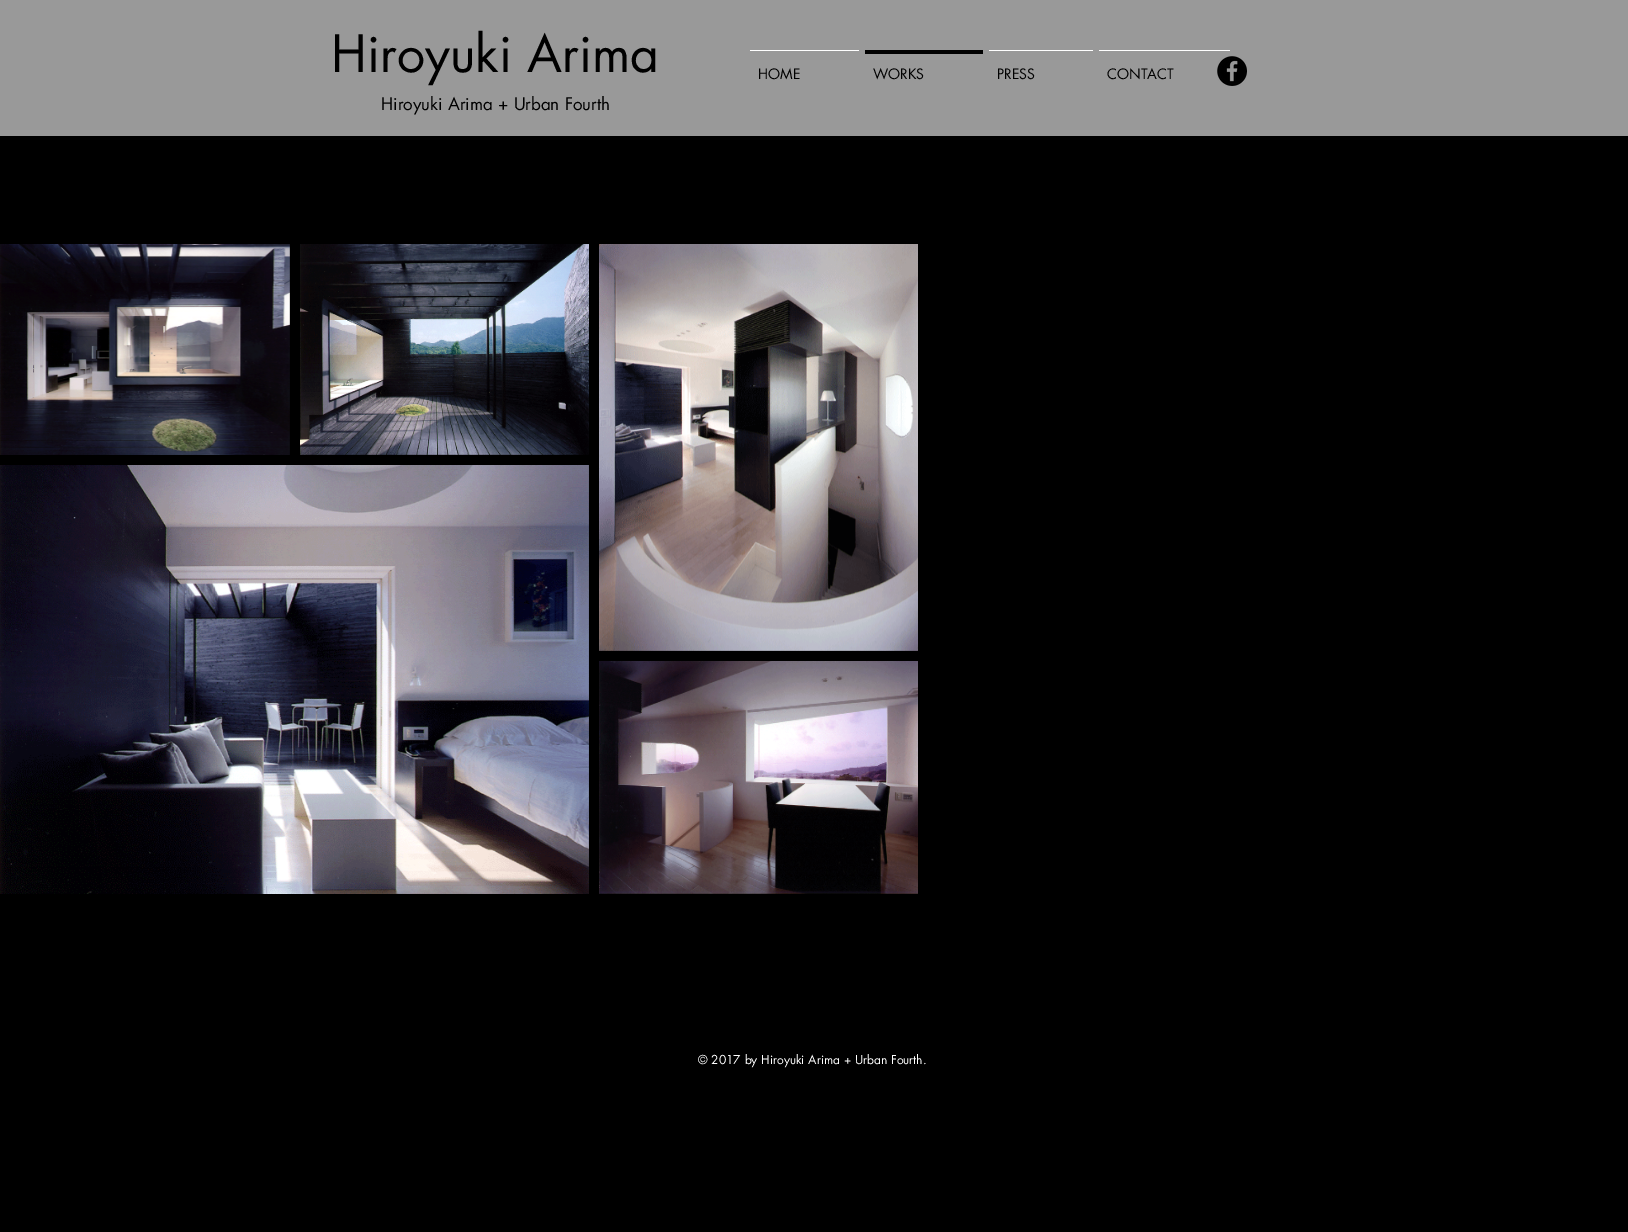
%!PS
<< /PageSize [1628 1232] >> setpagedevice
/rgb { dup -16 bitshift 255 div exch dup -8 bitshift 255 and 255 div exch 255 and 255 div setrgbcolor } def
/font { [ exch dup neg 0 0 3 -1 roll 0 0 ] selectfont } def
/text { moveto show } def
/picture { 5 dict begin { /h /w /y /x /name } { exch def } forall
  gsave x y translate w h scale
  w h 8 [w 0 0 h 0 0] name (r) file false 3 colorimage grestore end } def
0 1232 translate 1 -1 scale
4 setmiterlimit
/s1 { /futura-Regular 50 font 16#000000 rgb } def
/s2 { /futura-Regular 14 font 16#000000 rgb } def
/s3 { /futura-Regular 17 font 16#000000 rgb } def
/s4 { /futura-Regular 12 font 16#FFFFFF rgb } def
16#000000 rgb
0 0 1628 1232 rectfill
16#999999 rgb
0 0 1628 136 rectfill
s1
(Hiroyuki Arima) 331 72 text
16#FFFFFF rgb
750 50 109 1 rectfill
s2
(HOME) 758 79 text
865 50 118 4 rectfill
(WORKS) 873 79 text
16#FFFFFF rgb
989 50 104 1 rectfill
s2
(PRESS) 997 79 text
16#FFFFFF rgb
1099 50 131 1 rectfill
s2
(CONTACT) 1107 79 text
(pic1.raw) 1217 56 30 30 picture
s3
(Hiroyuki Arima + Urban Fourth) 381 110 text
(pic2.raw) 0 244 290 211 picture
(pic3.raw) 300 244 289 211 picture
(pic4.raw) 599 244 319 407 picture
(pic5.raw) 0 465 589 429 picture
(pic6.raw) 599 661 319 233 picture
s4
(© 2017 by Hiroyuki Arima + Urban Fourth.) 698 1064 text
showpage
